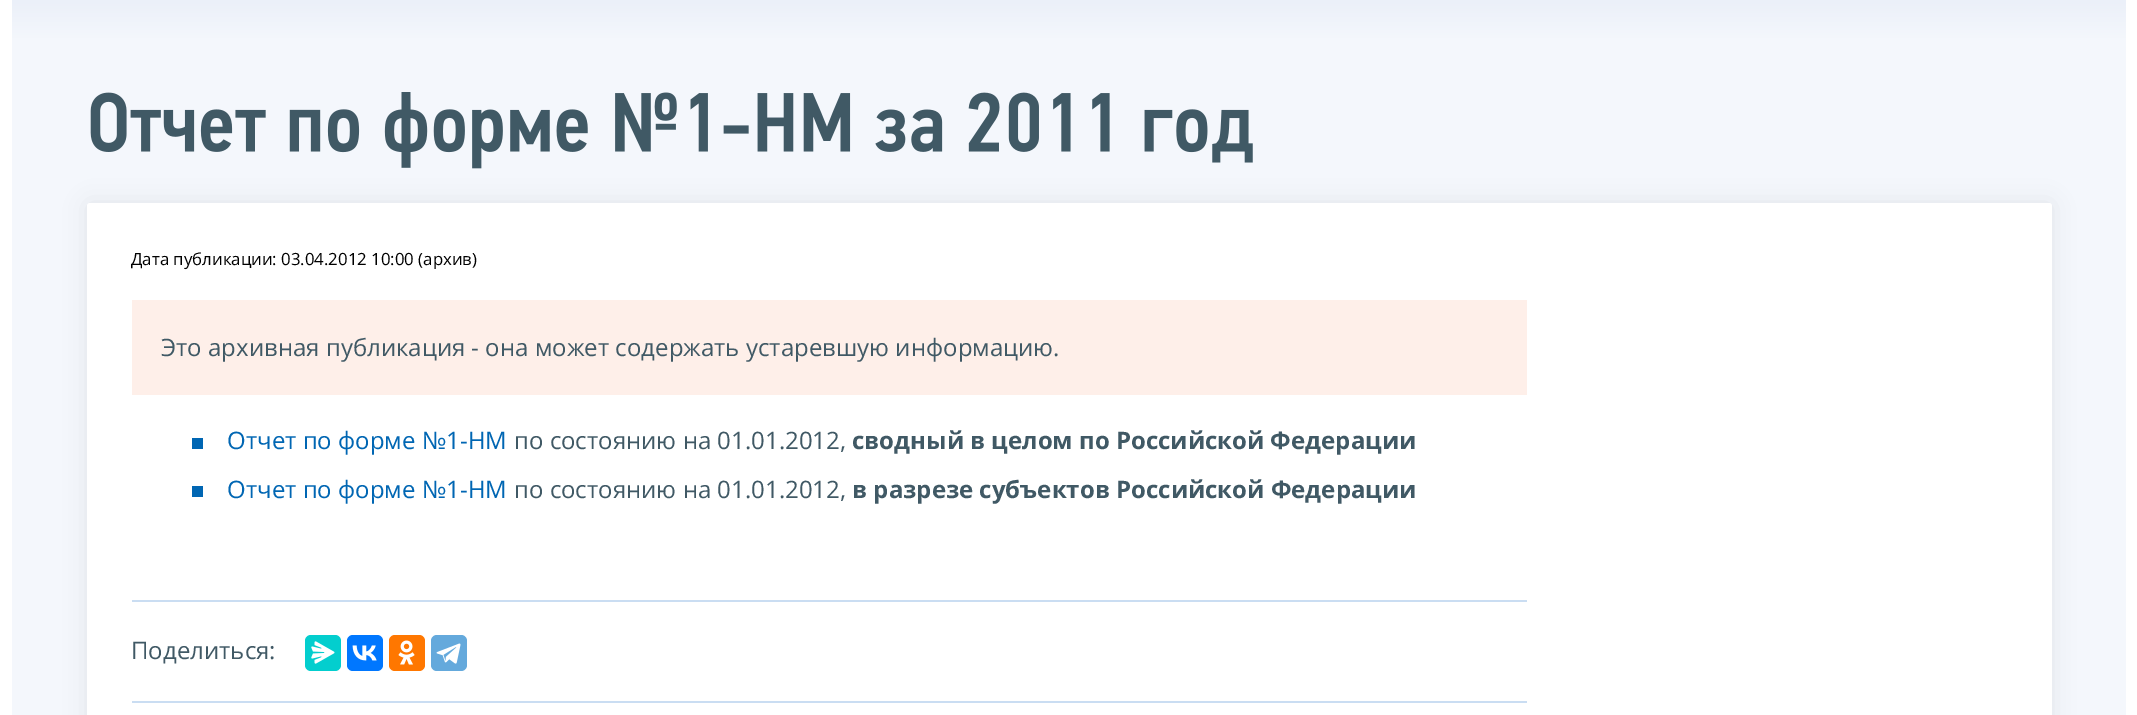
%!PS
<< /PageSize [2137 715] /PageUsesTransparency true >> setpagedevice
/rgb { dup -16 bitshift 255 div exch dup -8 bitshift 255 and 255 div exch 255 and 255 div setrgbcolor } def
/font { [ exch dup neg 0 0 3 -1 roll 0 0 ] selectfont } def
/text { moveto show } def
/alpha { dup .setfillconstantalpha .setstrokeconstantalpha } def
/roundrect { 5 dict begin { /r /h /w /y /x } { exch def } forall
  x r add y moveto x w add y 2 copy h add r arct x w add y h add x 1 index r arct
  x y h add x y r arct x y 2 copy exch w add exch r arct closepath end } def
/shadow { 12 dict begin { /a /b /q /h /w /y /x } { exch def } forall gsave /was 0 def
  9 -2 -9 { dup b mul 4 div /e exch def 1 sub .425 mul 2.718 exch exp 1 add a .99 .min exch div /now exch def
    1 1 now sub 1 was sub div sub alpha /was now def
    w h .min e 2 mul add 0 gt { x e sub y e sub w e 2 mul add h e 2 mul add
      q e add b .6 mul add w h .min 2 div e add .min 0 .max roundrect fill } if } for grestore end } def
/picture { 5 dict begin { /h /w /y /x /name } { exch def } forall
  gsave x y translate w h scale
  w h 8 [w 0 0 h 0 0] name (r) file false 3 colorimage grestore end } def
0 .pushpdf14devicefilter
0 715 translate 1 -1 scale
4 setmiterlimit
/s1 { /OpenSans-Regular 16.8 font 16#000000 rgb } def
/s2 { /OpenSans-Regular 24 font 16#405965 rgb } def
/s3 { /OpenSans-Regular 24 font 16#0066B3 rgb } def
/s4 { /OpenSans-Bold 24 font 16#405965 rgb } def
16#FFFFFF rgb
0 0 2137 715 rectfill
16#F4F7FC rgb
12 39 2114 676 rectfill
gsave 12 0 moveto 2126 0 lineto 2126 39 lineto 12 39 lineto closepath clip newpath
<< /ShadingType 2 /ColorSpace /DeviceRGB /Coords [1069 -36 1069 39] /Extend [true true] /Function << /FunctionType 2 /Domain [0 1] /C0 [0.886 0.918 0.965] /C1 [0.957 0.969 0.988] /N 1 >> >> shfill grestore
(pic1.raw) 90 92 1163 77 picture
16#000000 rgb
87 203 1965 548 3 11 0.07 shadow
16#FFFFFF rgb
87 203 1965 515 3 roundrect fill
s1
(Дата публикации: 03.04.2012 10:00 \(архив\)) 131 265 text
16#FEEFE9 rgb
132 300 1395 95 rectfill
s2
(Это архивная публикация - она может содержать устаревшую информацию.) 161 356 text
16#0066B3 rgb
192 438 11 11 rectfill
(Отчет по форме №1-НМ) 227 449 text
s2
(по состоянию на 01.01.2012,) 514 449 text
s4
(сводный в целом по Российской Федерации) 852 449 text
16#0066B3 rgb
192 486 11 11 rectfill
s3
(Отчет по форме №1-НМ) 227 498 text
s2
(по состоянию на 01.01.2012,) 514 498 text
s4
(в разрезе субъектов Российской Федерации) 852 498 text
16#CADDF2 rgb
132 600 1395 2 rectfill
132 701 1395 2 rectfill
s2
(Поделиться:) 131 659 text
16#03CECE rgb
305 635 36 36 6 roundrect fill
(pic2.raw) 311 641 24 23 picture
16#0077FF rgb
347 635 36 36 6 roundrect fill
(pic3.raw) 352 645 25 16 picture
16#FF7700 rgb
389 635 36 36 6 roundrect fill
(pic4.raw) 398 640 17 25 picture
16#64A9DC rgb
431 635 36 36 6 roundrect fill
(pic5.raw) 436 643 25 21 picture
.poppdf14devicefilter showpage
